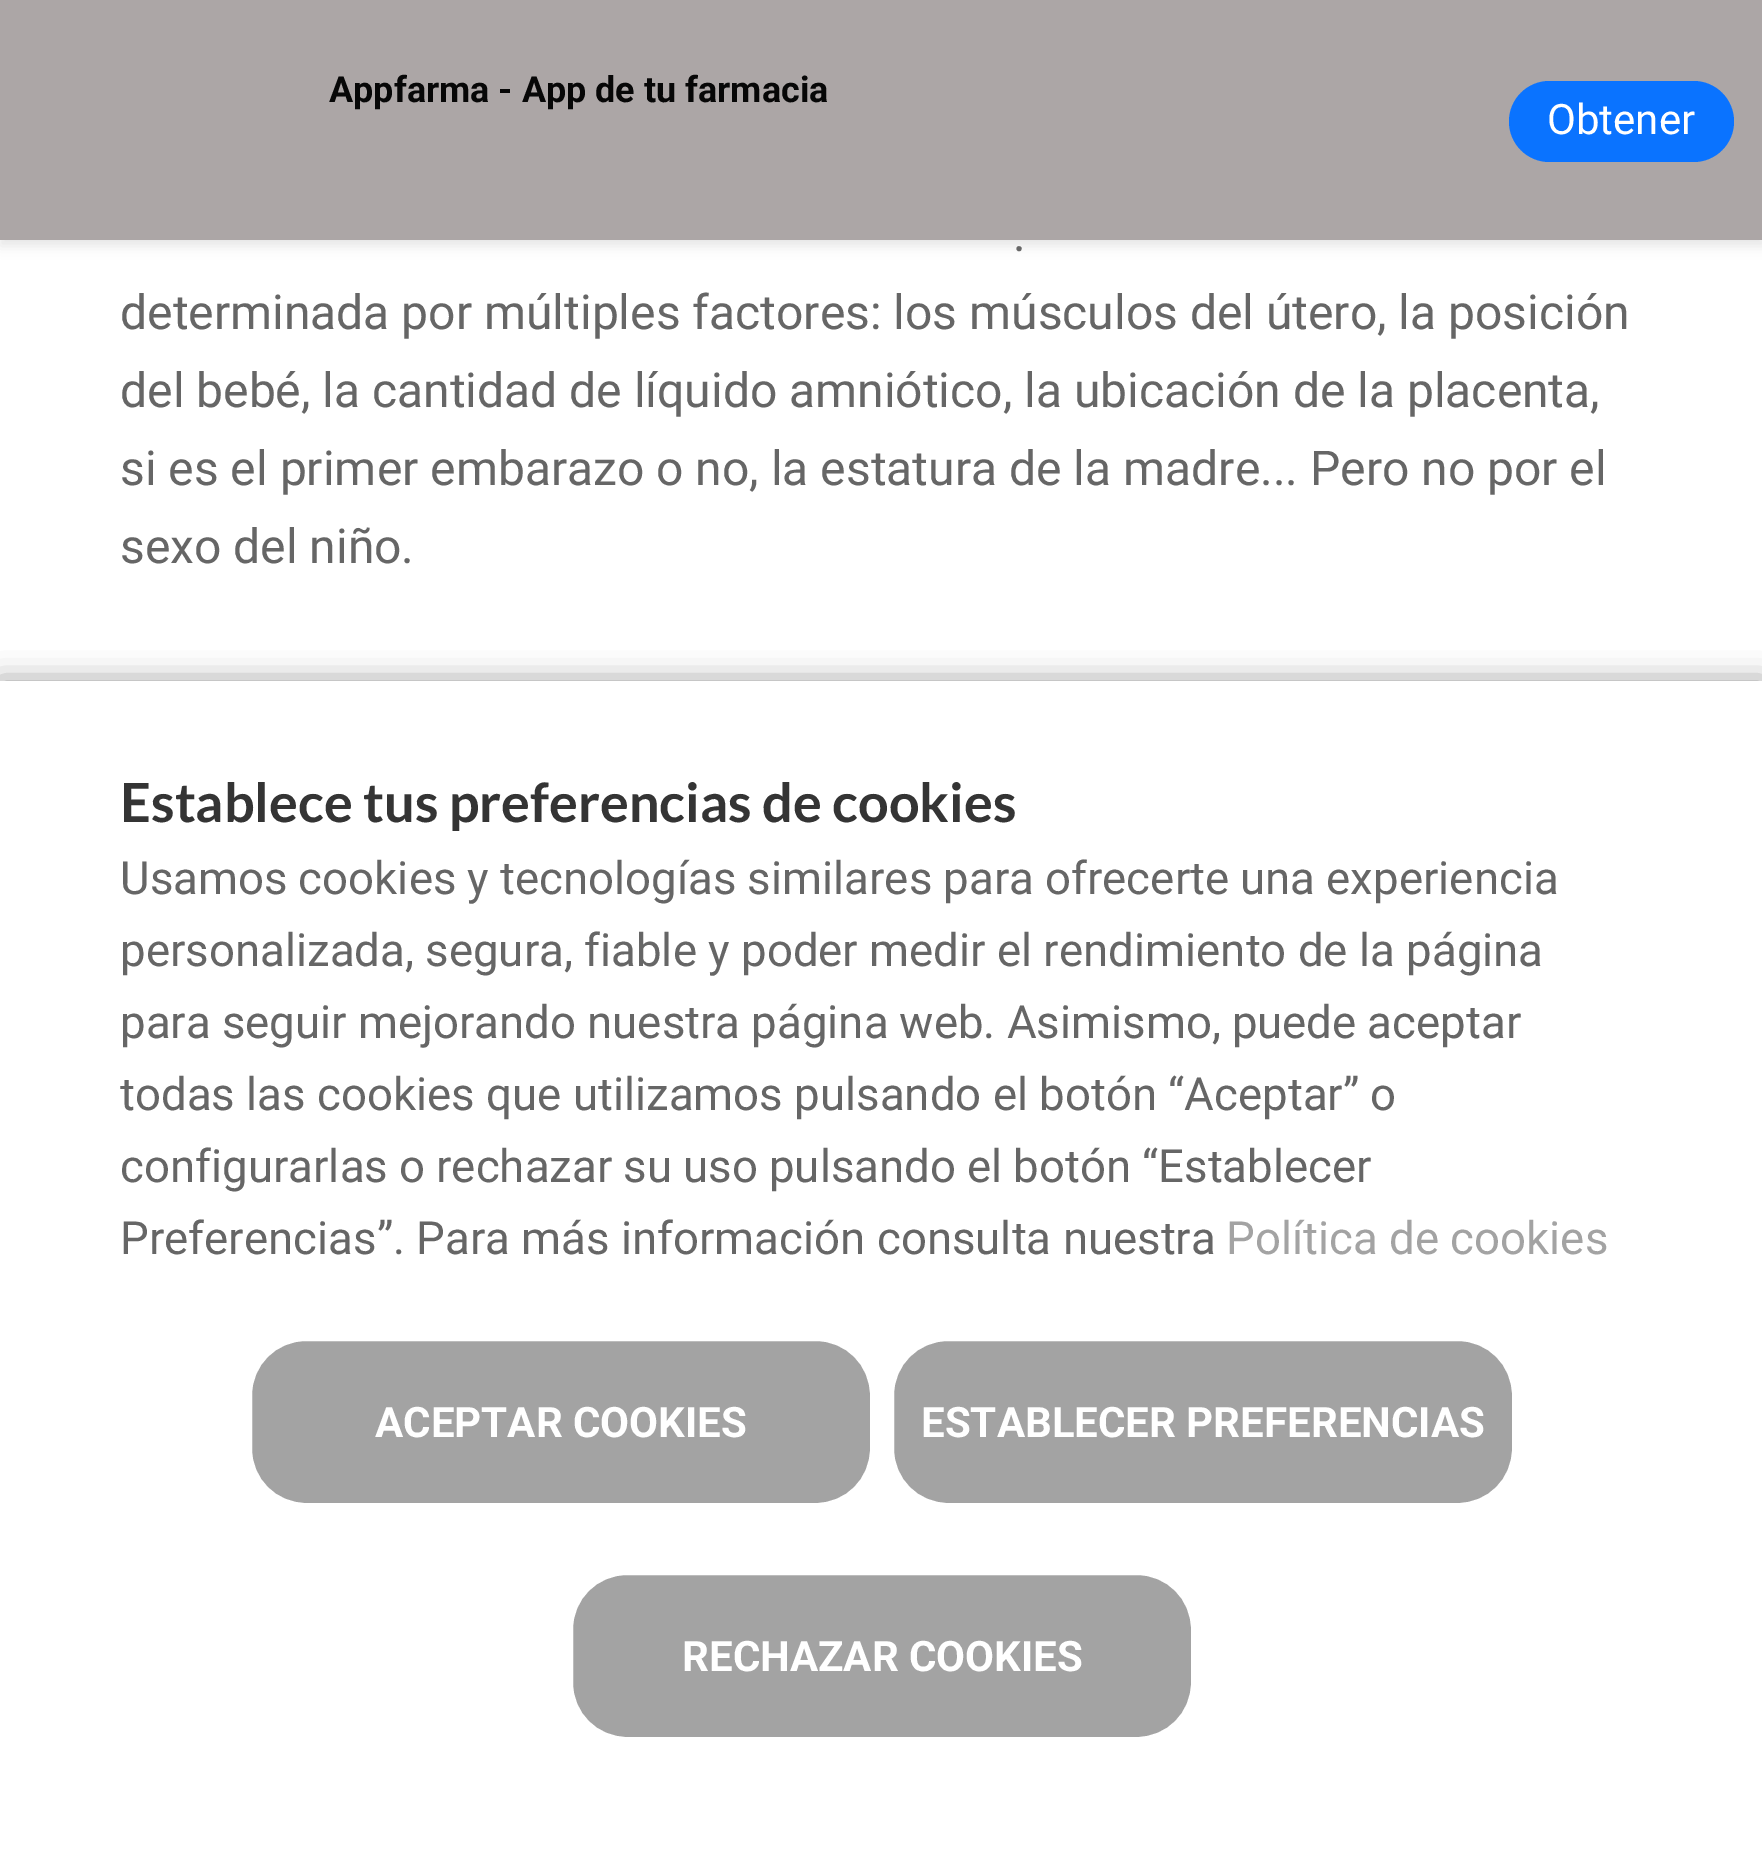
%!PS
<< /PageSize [1762 1861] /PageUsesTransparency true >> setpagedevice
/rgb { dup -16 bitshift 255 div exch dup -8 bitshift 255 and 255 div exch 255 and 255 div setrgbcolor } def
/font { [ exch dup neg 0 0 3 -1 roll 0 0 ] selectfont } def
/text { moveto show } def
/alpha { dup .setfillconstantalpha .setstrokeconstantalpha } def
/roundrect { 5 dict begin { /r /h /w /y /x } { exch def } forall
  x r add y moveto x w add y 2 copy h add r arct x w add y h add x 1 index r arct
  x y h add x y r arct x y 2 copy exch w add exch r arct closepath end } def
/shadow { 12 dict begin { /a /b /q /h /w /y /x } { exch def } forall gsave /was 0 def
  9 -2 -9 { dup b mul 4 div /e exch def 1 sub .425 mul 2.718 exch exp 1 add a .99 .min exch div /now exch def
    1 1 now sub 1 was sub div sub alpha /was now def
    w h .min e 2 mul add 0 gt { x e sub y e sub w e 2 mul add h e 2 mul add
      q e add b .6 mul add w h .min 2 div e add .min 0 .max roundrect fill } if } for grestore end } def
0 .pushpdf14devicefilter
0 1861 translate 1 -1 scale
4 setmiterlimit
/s1 { /Roboto-Bold 36 font 16#070707 rgb } def
/s2 { /Roboto-Regular 42 font 16#FFFFFF rgb } def
/s3 { /Roboto-Regular 48 font 16#666666 rgb } def
/s4 { /Lato-Bold 54 font 16#343434 rgb } def
/s5 { /Roboto-Regular 45.6 font 16#666666 rgb } def
/s6 { /Roboto-Regular 45.6 font 16#A3A3A3 rgb } def
/s7 { /Roboto-Bold 42 font 16#FFFFFF rgb } def
16#FFFFFF rgb
0 0 1762 1861 rectfill
16#000000 rgb
0 6 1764 240 0 6 0.1 shadow
16#ACA6A6 rgb
0 0 1762 240 rectfill
s1
(Appfarma - App de tu farmacia) 329 102 text
16#0A73FF rgb
1509 81 225 81 40.5 roundrect fill
s2
(Obtener) 1547 134 text
s3
(.) 1013 251 text
(determinada por múltiples factores: los músculos del útero, la posición) 120 329 text
(del bebé, la cantidad de líquido amniótico, la ubicación de la placenta,) 120 407 text
(si es el primer embarazo o no, la estatura de la madre... Pero no por el) 120 485 text
(sexo del niño.) 120 563 text
16#000000 rgb
0 684 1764 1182 0 15 0.5 shadow
16#FFFFFF rgb
0 681 1762 1180 rectfill
s4
(Establece tus preferencias de cookies) 120 822 text
/Roboto-Regular 45.6 font
16#666666 rgb
120 894 moveto -0.25 0 32 (Usamos cookies y tecnologías similares para ofrecerte una experiencia) widthshow
(personalizada, segura, fiable y poder medir el rendimiento de la página) 120 966 text
120 1038 moveto -0.25 0 32 (para seguir mejorando nuestra página web. Asimismo, puede aceptar) widthshow
(todas las cookies que utilizamos pulsando el botón “Aceptar” o) 120 1110 text
120 1182 moveto -0.25 0 32 (configurarlas o rechazar su uso pulsando el botón “Establecer) widthshow
(Preferencias”. Para más información consulta nuestra) 120 1254 text
s6
(Política de cookies) 1226 1254 text
249 1338 624 168 57 roundrect gsave fill grestore
16#FFFFFF rgb
6 setlinewidth
stroke
s7
(ACEPTAR COOKIES) 375 1437 text
16#A3A3A3 rgb
891 1338 624 168 57 roundrect gsave fill grestore
16#FFFFFF rgb
stroke
(ESTABLECER PREFERENCIAS) 921 1437 text
16#A3A3A3 rgb
570 1572 624 168 57 roundrect gsave fill grestore
16#FFFFFF rgb
stroke
(RECHAZAR COOKIES) 682 1671 text
.poppdf14devicefilter showpage
